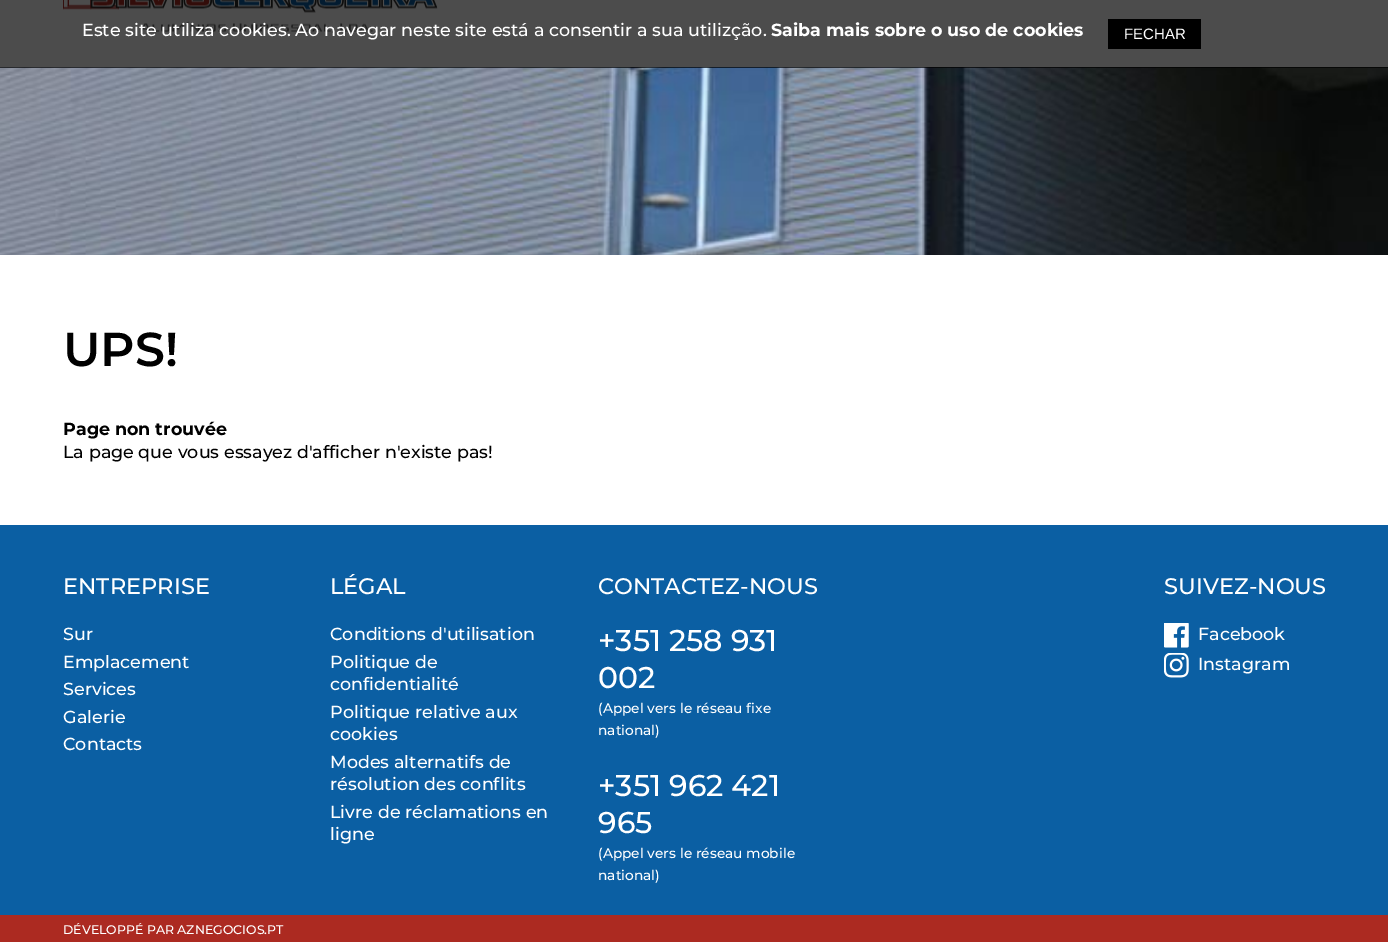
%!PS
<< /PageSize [1388 942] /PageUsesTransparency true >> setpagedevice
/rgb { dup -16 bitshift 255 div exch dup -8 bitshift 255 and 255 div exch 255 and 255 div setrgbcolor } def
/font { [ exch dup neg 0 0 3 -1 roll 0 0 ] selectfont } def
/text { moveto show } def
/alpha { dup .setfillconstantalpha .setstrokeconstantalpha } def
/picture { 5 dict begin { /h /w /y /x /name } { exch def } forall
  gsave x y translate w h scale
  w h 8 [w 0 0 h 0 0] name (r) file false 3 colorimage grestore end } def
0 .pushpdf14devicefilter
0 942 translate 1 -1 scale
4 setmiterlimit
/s1 { /Montserrat-Medium 17.5 font 16#FFFFFF rgb } def
/s2 { /Montserrat-Bold 17.5 font 16#FFFFFF rgb } def
/s3 { /LiberationSans-Regular 15 font 16#FFFFFF rgb } def
/s4 { /Montserrat-SemiBold 47.5 font 16#000000 rgb } def
/s5 { /Montserrat-Bold 17.5 font 16#000000 rgb } def
/s6 { /Montserrat-Medium 17.5 font 16#000000 rgb } def
/s7 { /Montserrat-Medium 22.5 font 16#FFFFFF rgb } def
/s8 { /Montserrat-Medium 30 font 16#FFFFFF rgb } def
/s9 { /Montserrat-Medium 13.75 font 16#FFFFFF rgb } def
/s10 { /Montserrat-Medium 12.5 font 16#FFFFFF rgb } def
16#FFFFFF rgb
0 0 1388 942 rectfill
(pic1.raw) 63 0 375 33 picture
(pic2.raw) 0 67 1388 188 picture
0.7 alpha
16#000000 rgb
0 0 1388 68 rectfill
1 alpha
s1
(Este site utiliza cookies. Ao navegar neste site está a consentir a sua utilizção.) 82 36 text
s2
(Saiba mais sobre o uso de cookies) 771 36 text
16#000000 rgb
1108 19 93 30 rectfill
s3
(FECHAR) 1124 39 text
s4
(UPS!) 63 366 text
s5
(Page non trouvée) 63 435 text
s6
(La page que vous essayez d'afficher n'existe pas!) 63 458 text
16#0B5FA3 rgb
0 525 1388 390 rectfill
s7
(ENTREPRISE) 63 594 text
s1
(Sur) 63 640 text
(Emplacement) 63 668 text
(Services) 63 695 text
(Galerie) 63 723 text
(Contacts) 63 750 text
s7
(LÉGAL) 330 594 text
s1
(Conditions d'utilisation) 330 640 text
(Politique de) 330 668 text
(confidentialité) 330 690 text
(Politique relative aux) 330 718 text
(cookies) 330 740 text
(Modes alternatifs de) 330 768 text
(résolution des conflits) 330 790 text
(Livre de réclamations en) 330 818 text
(ligne) 330 840 text
s7
(CONTACTEZ-NOUS) 598 594 text
s8
(+351 258 931) 598 651 text
(002) 598 688 text
s9
(\(Appel vers le réseau fixe) 598 713 text
(national\)) 598 735 text
s8
(+351 962 421) 598 796 text
(965) 598 833 text
s9
(\(Appel vers le réseau mobile) 598 858 text
(national\)) 598 880 text
s7
(SUIVEZ-NOUS) 1164 594 text
(pic3.raw) 1164 623 25 25 picture
s1
(Facebook) 1198 640 text
(pic4.raw) 1164 653 25 25 picture
(Instagram) 1198 670 text
16#AC2A21 rgb
0 915 1388 27 rectfill
s10
(DÉVELOPPÉ PAR AZNEGOCIOS.PT) 63 934 text
.poppdf14devicefilter showpage
